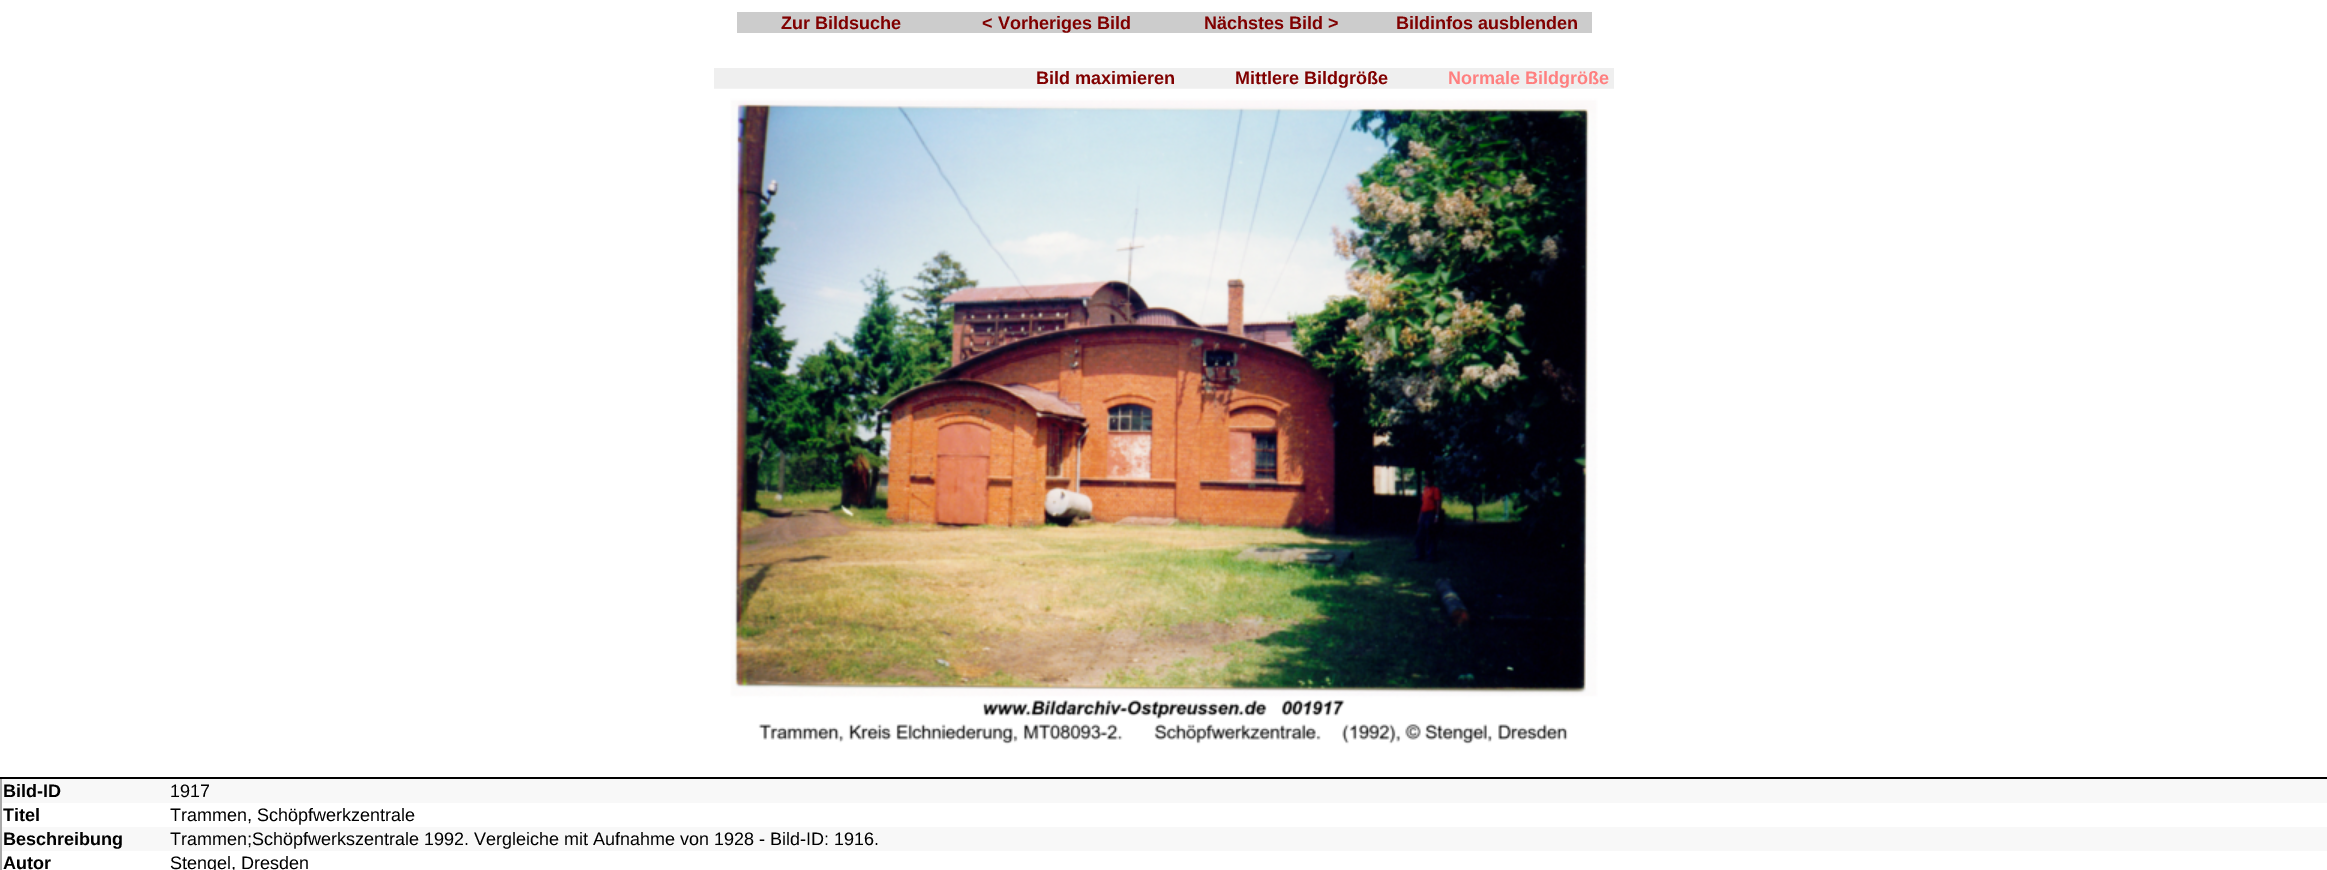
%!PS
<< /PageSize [2327 870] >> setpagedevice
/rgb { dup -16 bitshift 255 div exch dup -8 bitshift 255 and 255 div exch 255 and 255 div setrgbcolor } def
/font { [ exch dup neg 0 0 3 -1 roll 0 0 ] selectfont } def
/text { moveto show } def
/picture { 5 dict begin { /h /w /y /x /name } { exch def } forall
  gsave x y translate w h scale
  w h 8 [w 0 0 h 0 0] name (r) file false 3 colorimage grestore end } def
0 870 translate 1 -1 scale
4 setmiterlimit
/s1 { /LiberationSans-Bold 18 font 16#800000 rgb } def
/s2 { /LiberationSans-Bold 18 font 16#FF7F7F rgb } def
/s3 { /LiberationSans-Bold 18 font 16#000000 rgb } def
/s4 { /LiberationSans-Regular 18 font 16#000000 rgb } def
16#FFFFFF rgb
0 0 2327 870 rectfill
16#CCCCCC rgb
737 12 855 21 rectfill
s1
(Zur Bildsuche) 781 29 text
(< Vorheriges Bild) 982 29 text
(Nächstes Bild >) 1204 29 text
(Bildinfos ausblenden) 1396 29 text
16#EFEFEF rgb
714 68 900 21 rectfill
s1
(Bild maximieren) 1036 84 text
(Mittlere Bildgröße) 1235 84 text
s2
(Normale Bildgröße) 1448 84 text
(pic1.raw) 714 88 900 668 picture
16#AAAAAA rgb
0 777 2 93 rectfill
16#000000 rgb
0 777 2327 2 rectfill
16#F8F8F8 rgb
2 779 2325 24 rectfill
s3
(Bild-ID) 3 797 text
s4
(1917) 170 797 text
s3
(Titel) 3 821 text
s4
(Trammen, Schöpfwerkzentrale) 170 821 text
16#F8F8F8 rgb
2 827 2325 24 rectfill
s3
(Beschreibung) 3 845 text
s4
(Trammen;Schöpfwerkszentrale 1992. Vergleiche mit Aufnahme von 1928 - Bild-ID: 1916.) 170 845 text
s3
(Autor) 3 869 text
s4
(Stengel, Dresden) 170 869 text
showpage
